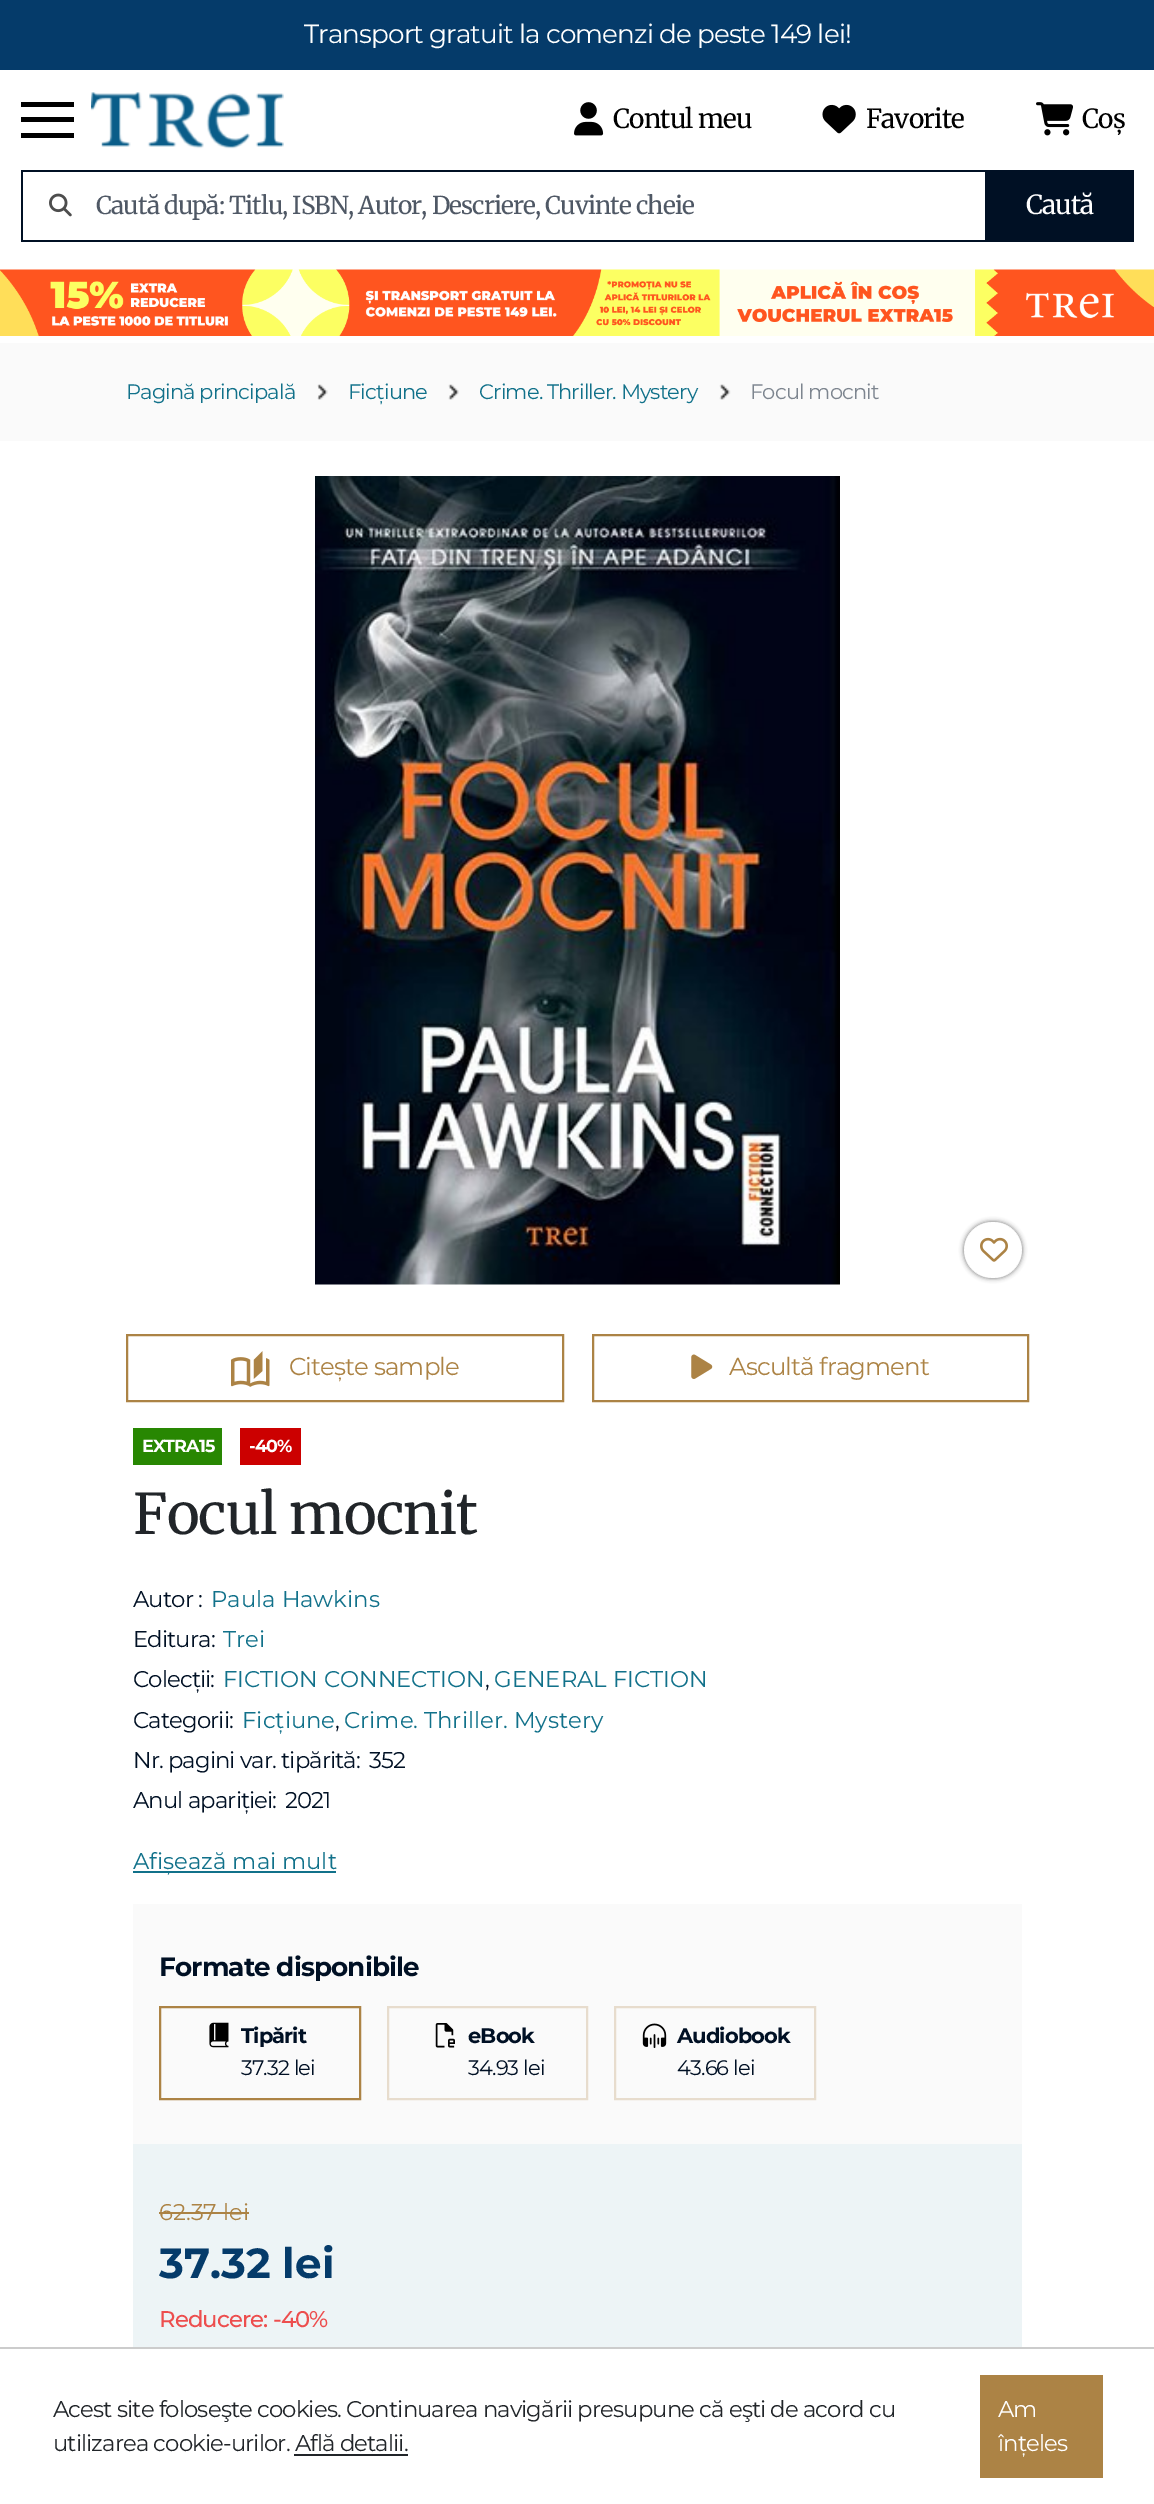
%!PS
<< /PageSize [1154 2504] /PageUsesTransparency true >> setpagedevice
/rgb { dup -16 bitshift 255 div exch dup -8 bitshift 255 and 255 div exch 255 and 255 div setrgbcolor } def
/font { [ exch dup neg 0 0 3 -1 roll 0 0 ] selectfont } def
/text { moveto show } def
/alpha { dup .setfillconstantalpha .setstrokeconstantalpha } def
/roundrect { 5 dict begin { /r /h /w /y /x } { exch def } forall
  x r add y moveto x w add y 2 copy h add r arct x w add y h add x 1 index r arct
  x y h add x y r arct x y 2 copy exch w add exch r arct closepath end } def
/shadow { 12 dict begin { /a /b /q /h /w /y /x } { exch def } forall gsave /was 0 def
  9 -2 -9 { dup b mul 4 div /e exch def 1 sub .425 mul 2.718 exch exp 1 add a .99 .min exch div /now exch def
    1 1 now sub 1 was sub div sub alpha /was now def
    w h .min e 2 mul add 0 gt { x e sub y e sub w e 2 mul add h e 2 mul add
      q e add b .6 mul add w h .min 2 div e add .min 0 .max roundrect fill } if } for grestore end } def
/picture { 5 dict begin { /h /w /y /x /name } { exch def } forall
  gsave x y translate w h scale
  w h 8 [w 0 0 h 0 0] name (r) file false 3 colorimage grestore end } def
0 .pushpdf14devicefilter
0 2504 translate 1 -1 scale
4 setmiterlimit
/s1 { /Montserrat-Regular 22.75 font 16#11718A rgb } def
/s2 { /Montserrat-Regular 22.75 font 16#AC8345 rgb } def
/s3 { /Montserrat-Bold 42 font 16#053B6A rgb } def
16#FFFFFF rgb
0 0 1154 2504 rectfill
16#053B6A rgb
0 0 1154 70 rectfill
/Montserrat-Regular 26.25 font
16#FFFFFF rgb
304 43 moveto -0.88 0 (Transport gratuit la comenzi de peste 149 lei!) ashow
16#000000 rgb
21 102 53 5 rectfill
21 117 53 5 rectfill
21 133 53 5 rectfill
(pic1.raw) 91 92 193 57 picture
(pic2.raw) 574 102 30 34 picture
/Merriweather-Regular 26.25 font
613 128 moveto -0.88 0 (Contul meu) ashow
(pic3.raw) 822 104 34 30 picture
866 128 moveto -0.88 0 (Favorite) ashow
(pic4.raw) 1036 102 37 34 picture
1082 128 moveto -0.88 0 (Coș) ashow
(pic5.raw) 49 193 23 24 picture
16#001024 rgb
21 170 964 2 rectfill
21 240 964 2 rectfill
21 170 2 72 rectfill
/Merriweather-Regular 24.5 font
16#4F5865 rgb
96 214 moveto -0.88 0 (Caută după: Titlu, ISBN, Autor, Descriere, Cuvinte cheie) ashow
16#001024 rgb
985 170 149 72 rectfill
/Merriweather-Regular 26.25 font
16#FFFFFF rgb
1026 214 moveto -0.88 0 (Caută) ashow
(pic6.raw) 0 269 1154 67 picture
16#FAFAFA rgb
0 343 1154 98 rectfill
/Montserrat-Regular 21 font
16#11718A rgb
126 399 moveto -0.88 0 (Pagină principală) ashow
(pic7.raw) 317 384 11 16 picture
348 399 moveto -0.88 0 (Ficțiune) ashow
(pic8.raw) 448 384 11 16 picture
479 399 moveto -0.88 0 (Crime. Thriller. Mystery) ashow
(pic9.raw) 719 384 12 16 picture
16#7D858F rgb
750 399 moveto -0.88 0 (Focul mocnit) ashow
(pic10.raw) 315 476 525 809 picture
gsave
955 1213 moveto 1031 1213 lineto 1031 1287 lineto 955 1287 lineto closepath 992 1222 moveto 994 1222 lineto 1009.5 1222 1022 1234.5 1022 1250 curveto 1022 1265.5 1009.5 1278 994 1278 curveto 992 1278 lineto 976.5 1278 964 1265.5 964 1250 curveto 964 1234.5 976.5 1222 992 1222 curveto closepath eoclip newpath
16#666666 rgb
964 1222 58 56 28 2.5 1 shadow
grestore
0.9 alpha
16#FFFFFF rgb
964 1222 58 56 28 roundrect fill
1 alpha
(pic11.raw) 980 1237 28 25 picture
16#AC8345 rgb
2 setlinewidth
127 1335 436 66 rectstroke
(pic12.raw) 231 1351 39 36 picture
/Montserrat-Regular 24.5 font
289 1375 moveto -0.88 0 (Citește sample) ashow
593 1335 435 66 rectstroke
(pic13.raw) 691 1354 22 25 picture
729 1375 moveto -0.88 0 (Ascultă fragment) ashow
16#288702 rgb
133 1428 89 37 rectfill
/Montserrat-Bold 17.5 font
16#FFFFFF rgb
142 1452 moveto -0.88 0 (EXTRA15) ashow
16#CC0000 rgb
240 1428 61 37 rectfill
16#FFFFFF rgb
249 1452 moveto -0.88 0 (-40%) ashow
/Merriweather-Regular 56 font
16#212529 rgb
133 1534 moveto -0.88 0 (Focul mocnit) ashow
/Montserrat-Regular 22.75 font
16#001024 rgb
133 1607 moveto -0.88 0 (Autor :) ashow
s1
(Paula Hawkins) 211 1607 text
16#001024 rgb
133 1647 moveto -0.88 0 (Editura:) ashow
s1
(Trei) 223 1647 text
16#001024 rgb
133 1687 moveto -0.88 0 (Colecții:) ashow
s1
(FICTION CONNECTION) 223 1687 text
16#001024 rgb
485 1687 moveto -0.88 0 (,) ashow
s1
(GENERAL FICTION) 494 1687 text
16#001024 rgb
133 1728 moveto -0.88 0 (Categorii:) ashow
s1
(Ficțiune) 242 1728 text
16#001024 rgb
335 1728 moveto -0.88 0 (,) ashow
s1
(Crime. Thriller. Mystery) 344 1728 text
16#001024 rgb
133 1768 moveto -0.88 0 (Nr. pagini var. tipărită:) ashow
369 1768 moveto -0.88 0 (352) ashow
133 1808 moveto -0.88 0 (Anul apariției:) ashow
285 1808 moveto -0.88 0 (2021) ashow
16#11718A rgb
133 1871 203 2 rectfill
(Afișează mai mult) 133 1869 text
16#FAFAFA rgb
133 1904 889 240 rectfill
/Montserrat-Bold 26.25 font
16#001024 rgb
159 1976 moveto -0.88 0 (Formate disponibile) ashow
16#AC8345 rgb
160 2007 200 92 rectstroke
(pic14.raw) 209 2022 20 26 picture
/Montserrat-Bold 21 font
16#001024 rgb
241 2043 moveto -0.88 0 (Tipărit) ashow
/Montserrat-Regular 21 font
241 2075 moveto -0.88 0 (37.32 lei) ashow
16#E7DCCD rgb
388 2007 199 92 rectstroke
(pic15.raw) 435 2023 20 25 picture
/Montserrat-Bold 21 font
16#001024 rgb
468 2043 moveto -0.88 0 (eBook) ashow
/Montserrat-Regular 21 font
468 2075 moveto -0.88 0 (34.93 lei) ashow
16#E7DCCD rgb
615 2007 200 92 rectstroke
(pic16.raw) 642 2023 25 25 picture
/Montserrat-Bold 21 font
16#001024 rgb
677 2043 moveto -0.88 0 (Audiobook) ashow
/Montserrat-Regular 21 font
677 2075 moveto -0.88 0 (43.66 lei) ashow
16#EDF4F6 rgb
133 2144 889 203 rectfill
s2
(62.37 lei) 159 2220 text
159 2212 90 2 rectfill
s3
(37.32 lei) 159 2278 text
/Montserrat-Medium 22.75 font
16#ED4E4E rgb
159 2327 moveto -0.88 0 (Reducere: -40%) ashow
16#CCCCCC rgb
0 2347 1154 2 rectfill
/Montserrat-Regular 22.75 font
16#212529 rgb
53 2417 moveto -0.88 0 (Acest site foloseşte cookies. Continuarea navigării presupune că eşti de acord cu) ashow
53 2451 moveto -0.88 0 (utilizarea cookie-urilor. Află detalii.) ashow
294 2454 114 2 rectfill
16#AC8345 rgb
980 2375 123 103 rectfill
16#FFFFFF rgb
998 2417 moveto -0.88 0 (Am) ashow
998 2451 moveto -0.88 0 (înțeles) ashow
.poppdf14devicefilter showpage
